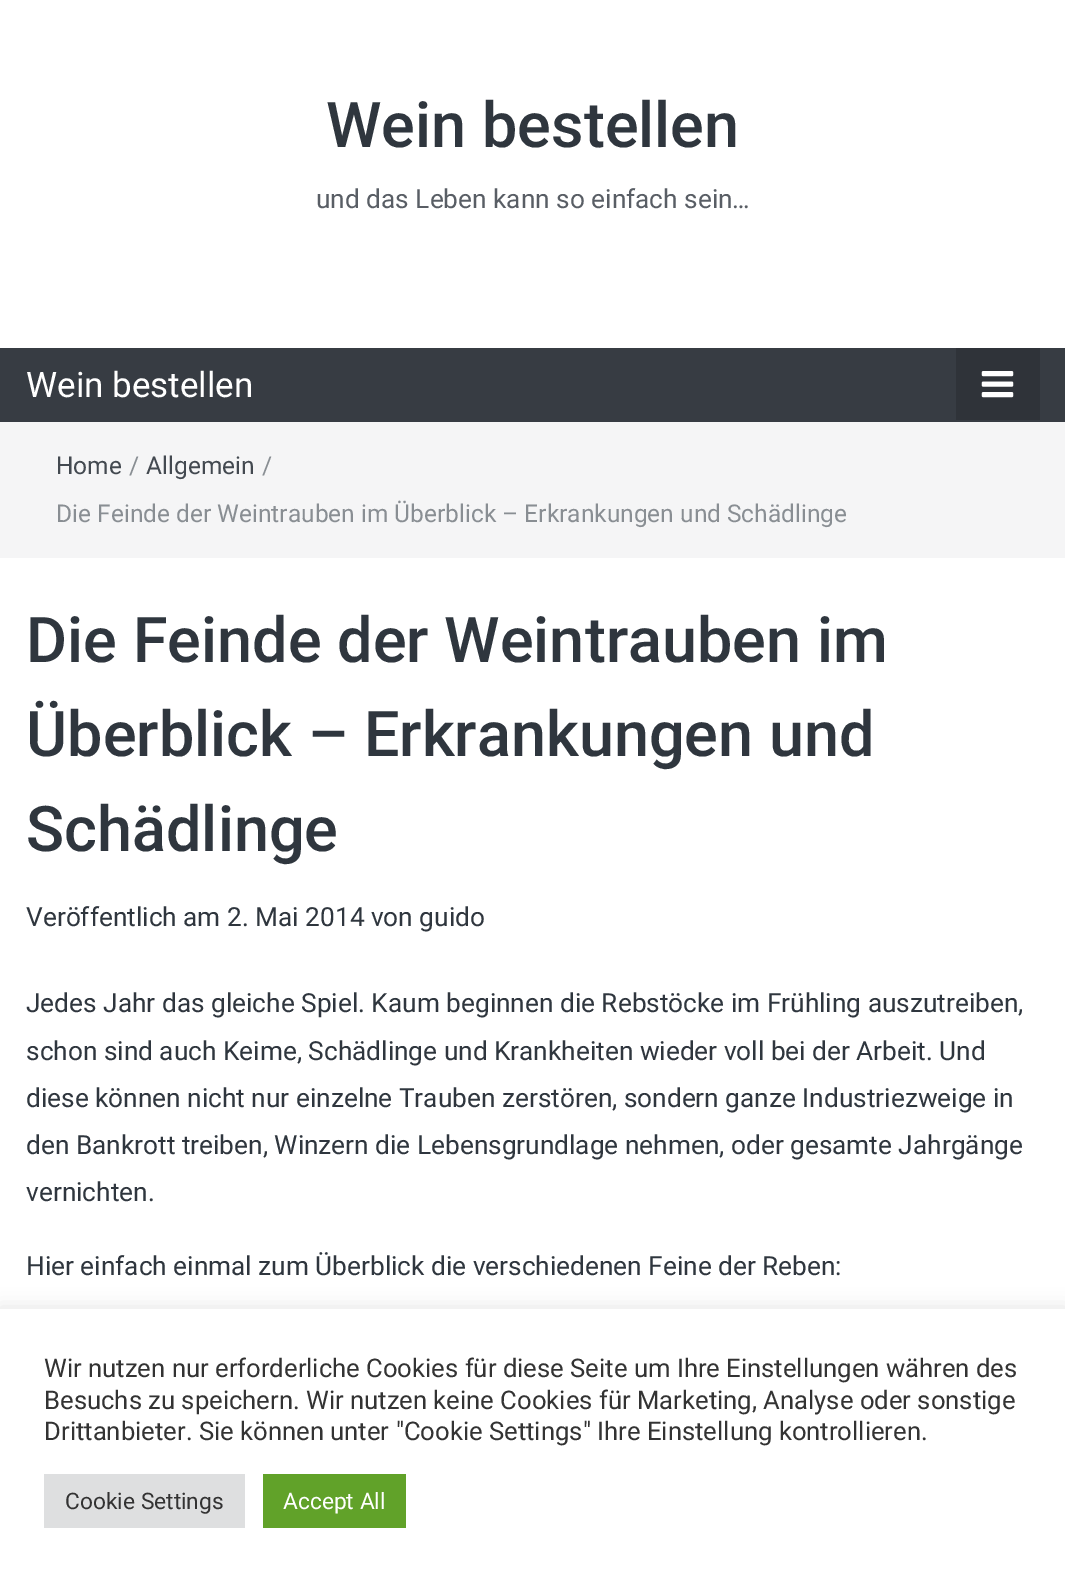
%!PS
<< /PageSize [1065 1579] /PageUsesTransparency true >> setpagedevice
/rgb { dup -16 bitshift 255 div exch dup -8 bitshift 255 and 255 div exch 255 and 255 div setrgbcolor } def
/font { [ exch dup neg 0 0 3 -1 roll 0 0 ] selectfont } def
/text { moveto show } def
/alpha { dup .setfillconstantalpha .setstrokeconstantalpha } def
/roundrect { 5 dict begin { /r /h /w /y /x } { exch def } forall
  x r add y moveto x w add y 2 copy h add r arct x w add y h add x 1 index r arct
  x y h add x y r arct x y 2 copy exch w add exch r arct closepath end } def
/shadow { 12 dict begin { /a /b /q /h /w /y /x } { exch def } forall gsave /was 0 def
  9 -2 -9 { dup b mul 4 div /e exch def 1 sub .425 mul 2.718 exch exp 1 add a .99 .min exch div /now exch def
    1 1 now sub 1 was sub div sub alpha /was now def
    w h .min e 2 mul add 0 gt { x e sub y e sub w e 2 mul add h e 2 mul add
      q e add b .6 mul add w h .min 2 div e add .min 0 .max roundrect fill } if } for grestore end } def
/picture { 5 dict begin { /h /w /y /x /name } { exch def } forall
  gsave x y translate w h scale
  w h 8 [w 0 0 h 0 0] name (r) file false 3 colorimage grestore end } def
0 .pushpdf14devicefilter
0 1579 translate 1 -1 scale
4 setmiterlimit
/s1 { /Roboto-Medium 63 font 16#2F363E rgb } def
/s2 { /Roboto-Regular 26.25 font 16#595E65 rgb } def
/s3 { /Roboto-Regular 35 font 16#FFFFFF rgb } def
/s4 { /Roboto-Regular 24.5 font 16#434950 rgb } def
/s5 { /Roboto-Regular 24.5 font 16#898E93 rgb } def
/s6 { /Roboto-Regular 26.25 font 16#2F363E rgb } def
/s7 { /Roboto-Regular 25.65 font 16#333333 rgb } def
/s8 { /Roboto-Regular 22.75 font 16#333333 rgb } def
/s9 { /Roboto-Regular 22.75 font 16#FFFFFF rgb } def
16#FFFFFF rgb
0 0 1065 1579 rectfill
s1
(Wein bestellen) 326 147 text
s2
(und das Leben kann so einfach sein…) 316 208 text
16#373C43 rgb
0 348 1065 74 rectfill
s3
(Wein bestellen) 26 397 text
16#2F3339 rgb
956 348 84 72 rectfill
(pic1.raw) 981 371 33 27 picture
16#F5F5F6 rgb
0 422 1065 136 rectfill
s4
(Home) 56 474 text
s5
(/) 129 474 text
s4
(Allgemein) 146 474 text
s5
(/) 262 474 text
(Die Feinde der Weintrauben im Überblick – Erkrankungen und Schädlinge) 56 522 text
s1
(Die Feinde der Weintrauben im) 26 662 text
(Überblick – Erkrankungen und) 26 756 text
(Schädlinge) 26 851 text
s6
(Veröffentlich am 2. Mai 2014 von guido) 26 926 text
(Jedes Jahr das gleiche Spiel. Kaum beginnen die Rebstöcke im Frühling auszutreiben,) 26 1012 text
(schon sind auch Keime, Schädlinge und Krankheiten wieder voll bei der Arbeit. Und) 26 1060 text
(diese können nicht nur einzelne Trauben zerstören, sondern ganze Industriezweige in) 26 1107 text
(den Bankrott treiben, Winzern die Lebensgrundlage nehmen, oder gesamte Jahrgänge) 26 1154 text
(vernichten.) 26 1201 text
(Hier einfach einmal zum Überblick die verschiedenen Feine der Reben:) 26 1275 text
16#ACABAB rgb
0 1307 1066 272 0 9 0.3 shadow
16#FFFFFF rgb
0 1309 1065 270 rectfill
s7
(Wir nutzen nur erforderliche Cookies für diese Seite um Ihre Einstellungen währen des) 44 1377 text
(Besuchs zu speichern. Wir nutzen keine Cookies für Marketing, Analyse oder sonstige) 44 1409 text
(Drittanbieter. Sie können unter "Cookie Settings" Ihre Einstellung kontrollieren.) 44 1440 text
16#DEDFE0 rgb
44 1474 201 54 rectfill
s8
(Cookie Settings) 65 1509 text
16#61A229 rgb
263 1474 143 54 rectfill
s9
(Accept All) 283 1509 text
.poppdf14devicefilter showpage
